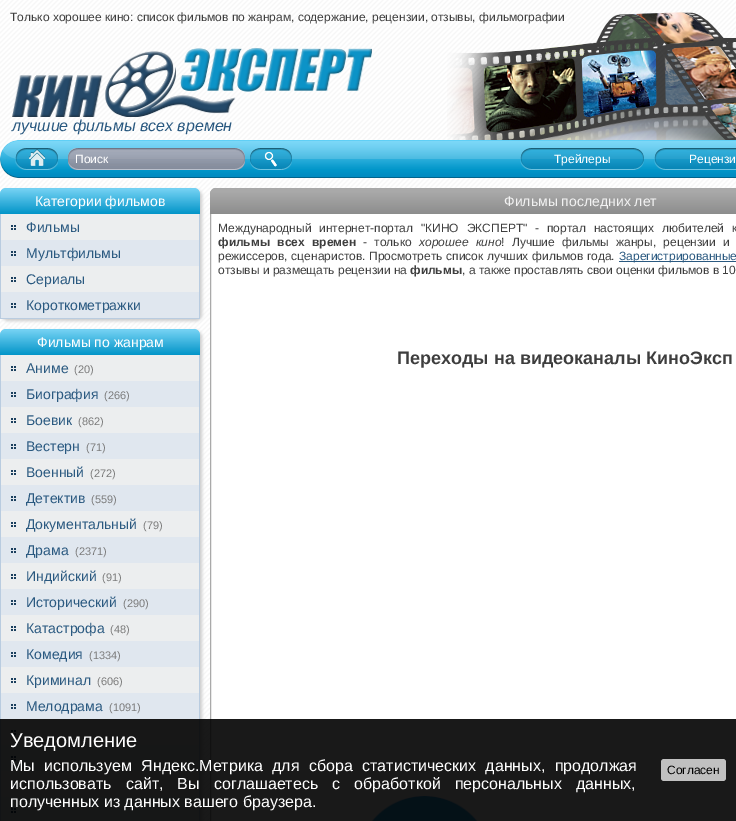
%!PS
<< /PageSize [736 821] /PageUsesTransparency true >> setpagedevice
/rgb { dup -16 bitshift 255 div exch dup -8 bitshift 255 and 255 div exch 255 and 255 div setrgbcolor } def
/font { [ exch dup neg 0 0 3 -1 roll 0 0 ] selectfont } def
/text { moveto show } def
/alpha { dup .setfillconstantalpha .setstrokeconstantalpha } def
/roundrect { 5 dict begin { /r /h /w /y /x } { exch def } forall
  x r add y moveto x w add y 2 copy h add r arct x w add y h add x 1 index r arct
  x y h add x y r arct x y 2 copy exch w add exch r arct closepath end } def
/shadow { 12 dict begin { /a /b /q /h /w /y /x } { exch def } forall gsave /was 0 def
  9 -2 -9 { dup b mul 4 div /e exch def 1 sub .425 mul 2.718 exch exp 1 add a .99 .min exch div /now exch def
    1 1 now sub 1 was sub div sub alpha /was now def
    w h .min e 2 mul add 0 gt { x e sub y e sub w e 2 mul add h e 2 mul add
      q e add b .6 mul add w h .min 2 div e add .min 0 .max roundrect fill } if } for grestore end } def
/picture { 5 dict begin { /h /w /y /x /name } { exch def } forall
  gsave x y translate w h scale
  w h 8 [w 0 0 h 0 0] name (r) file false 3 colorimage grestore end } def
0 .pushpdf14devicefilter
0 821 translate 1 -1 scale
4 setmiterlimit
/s1 { /LiberationSans-Regular 12 font 16#3E3E3E rgb } def
/s2 { /LiberationSans-Italic 16 font 16#2A5980 rgb } def
/s3 { /LiberationSans-Regular 12 font 16#FFFFFF rgb } def
/s4 { /LiberationSans-Regular 14 font 16#FFFFFF rgb } def
/s5 { /LiberationSans-Regular 14 font 16#2A5980 rgb } def
/s6 { /LiberationSans-Regular 11 font 16#7B7B7B rgb } def
/s7 { /LiberationSans-Regular 14 font 16#F2F2F2 rgb } def
/s8 { /LiberationSans-Regular 12 font 16#2A5980 rgb } def
/s9 { /LiberationSans-Bold 12 font 16#3E3E3E rgb } def
/s10 { /LiberationSans-Bold 18 font 16#3E3E3E rgb } def
/s11 { /LiberationSans-Regular 20 font 16#FFFFFF rgb } def
/s12 { /LiberationSans-Regular 16 font 16#FFFFFF rgb } def
/s13 { /LiberationSans-Regular 12 font 16#000000 rgb } def
16#FFFFFF rgb
0 0 736 821 rectfill
(pic1.raw) 0 0 736 821 picture
(pic2.raw) 447 12 289 128 picture
s1
(Только хорошее кино: список фильмов по жанрам, содержание, рецензии, отзывы, фильмографии) 10 21 text
(pic3.raw) 12 48 360 69 picture
s2
(лучшие фильмы всех времен) 12 131 text
(pic4.raw) 0 140 736 38 picture
(pic5.raw) 15 148 43 22 picture
(pic6.raw) 68 148 177 22 picture
s3
(Поиск) 75 163 text
(pic7.raw) 250 148 42 22 picture
(pic8.raw) 520 148 124 22 picture
(Трейлеры) 554 163 text
(pic9.raw) 654 148 82 22 picture
(Рецензи) 689 163 text
16#CDCDCD rgb
2 190 200 131 6 1.5 1 shadow
16#ECEEEF rgb
6 188 moveto 194 188 lineto 197.5 188 200 190.5 200 194 curveto 200 319 lineto 0 319 lineto 0 194 lineto 0 190.5 2.5 188 6 188 curveto closepath fill
16#B9CCE0 rgb
0 318 200 1 rectfill
16#71D0F2 rgb
6 188 moveto 194 188 lineto 197.5 188 200 190.5 200 194 curveto 200 214 lineto 0 214 lineto 0 194 lineto 0 190.5 2.5 188 6 188 curveto closepath fill
(pic10.raw) 0 189 200 25 picture
s4
(Категории фильмов) 35 206 text
16#B9CCE0 rgb
199 214 1 104 rectfill
0 214 1 104 rectfill
(pic11.raw) 11 225 5 5 picture
s5
(Фильмы) 26 232 text
16#E0E7EF rgb
1 240 198 26 rectfill
(pic12.raw) 11 251 5 5 picture
s5
(Мультфильмы) 26 258 text
(pic11.raw) 11 277 5 5 picture
(Сериалы) 26 284 text
16#E0E7EF rgb
1 292 198 26 rectfill
(pic12.raw) 11 303 5 5 picture
s5
(Короткометражки) 26 310 text
16#CDCDCD rgb
2 331 200 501 6 1.5 1 shadow
16#ECEEEF rgb
6 329 moveto 194 329 lineto 197.5 329 200 331.5 200 335 curveto 200 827 lineto 0 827 lineto 0 335 lineto 0 331.5 2.5 329 6 329 curveto closepath fill
16#71D0F2 rgb
6 329 moveto 194 329 lineto 197.5 329 200 331.5 200 335 curveto 200 355 lineto 0 355 lineto 0 335 lineto 0 331.5 2.5 329 6 329 curveto closepath fill
(pic13.raw) 0 330 200 25 picture
s4
(Фильмы по жанрам) 37 347 text
16#B9CCE0 rgb
199 355 1 466 rectfill
0 355 1 466 rectfill
(pic11.raw) 11 366 5 5 picture
s5
(Аниме) 26 373 text
s6
(\(20\)) 74 373 text
16#E0E7EF rgb
1 381 198 26 rectfill
(pic12.raw) 11 392 5 5 picture
s5
(Биография) 26 399 text
s6
(\(266\)) 104 399 text
(pic11.raw) 11 418 5 5 picture
s5
(Боевик) 26 425 text
s6
(\(862\)) 78 425 text
16#E0E7EF rgb
1 433 198 26 rectfill
(pic12.raw) 11 444 5 5 picture
s5
(Вестерн) 26 451 text
s6
(\(71\)) 86 451 text
(pic11.raw) 11 470 5 5 picture
s5
(Военный) 26 477 text
s6
(\(272\)) 90 477 text
16#E0E7EF rgb
1 485 198 26 rectfill
(pic12.raw) 11 496 5 5 picture
s5
(Детектив) 26 503 text
s6
(\(559\)) 91 503 text
(pic11.raw) 11 522 5 5 picture
s5
(Документальный) 26 529 text
s6
(\(79\)) 143 529 text
16#E0E7EF rgb
1 537 198 26 rectfill
(pic12.raw) 11 548 5 5 picture
s5
(Драма) 26 555 text
s6
(\(2371\)) 75 555 text
(pic11.raw) 11 574 5 5 picture
s5
(Индийский) 26 581 text
s6
(\(91\)) 102 581 text
16#E0E7EF rgb
1 589 198 26 rectfill
(pic12.raw) 11 600 5 5 picture
s5
(Исторический) 26 607 text
s6
(\(290\)) 123 607 text
(pic11.raw) 11 626 5 5 picture
s5
(Катастрофа) 26 633 text
s6
(\(48\)) 110 633 text
16#E0E7EF rgb
1 641 198 26 rectfill
(pic12.raw) 11 652 5 5 picture
s5
(Комедия) 26 659 text
s6
(\(1334\)) 89 659 text
(pic11.raw) 11 678 5 5 picture
s5
(Криминал) 26 685 text
s6
(\(606\)) 97 685 text
16#E0E7EF rgb
1 693 198 26 rectfill
(pic12.raw) 11 704 5 5 picture
s5
(Мелодрама) 26 711 text
s6
(\(1091\)) 109 711 text
(pic11.raw) 11 730 5 5 picture
16#E0E7EF rgb
1 745 198 26 rectfill
(pic12.raw) 11 756 5 5 picture
(pic11.raw) 11 782 5 5 picture
1 797 198 24 rectfill
(pic12.raw) 11 808 5 5 picture
16#FFFFFF rgb
216 188.5 moveto 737 188.5 lineto 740 188.5 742.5 191 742.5 194 curveto 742.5 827.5 lineto 210.5 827.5 lineto 210.5 194 lineto 210.5 191 213 188.5 216 188.5 curveto closepath gsave fill grestore
16#A9A9A9 rgb
stroke
216 188 moveto 736 188 lineto 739.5 188 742 190.5 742 194 curveto 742 214 lineto 210 214 lineto 210 194 lineto 210 190.5 212.5 188 216 188 curveto closepath fill
(pic14.raw) 210 189 526 25 picture
s7
(Фильмы последних лет) 504 206 text
/LiberationSans-Regular 12 font
16#3E3E3E rgb
218 232 moveto 4.5 0 32 (Международный интернет-портал "КИНО ЭКСПЕРТ" - портал настоящих любителей к) widthshow
/LiberationSans-Bold 12 font
218 246 moveto 4 0 32 (фильмы всех времен) widthshow
/LiberationSans-Regular 12 font
363 246 moveto 4 0 32 (- только) widthshow
/LiberationSans-Italic 12 font
419 246 moveto 4 0 32 (хорошее кино) widthshow
/LiberationSans-Regular 12 font
501 246 moveto 4 0 32 (! Лучшие фильмы жанры, рецензии и) widthshow
218 260 moveto 0.25 0 32 (режиссеров, сценаристов. Просмотреть список лучших фильмов года.) widthshow
16#2A5980 rgb
619 261 117 1 rectfill
(Зарегистрированные) 619 260 text
s1
(отзывы и размещать рецензии на) 218 274 text
s9
(фильмы) 410 274 text
s1
(, а также проставлять свои оценки фильмов в 10) 462 274 text
s10
(Переходы на видеоканалы КиноЭксп) 397 364 text
(pic15.raw) 371 796 107 25 picture
0.9 alpha
16#000000 rgb
0 719 736 102 rectfill
1 alpha
s11
(Уведомление) 10 747 text
/LiberationSans-Regular 16 font
10 771 moveto 5 0 32 (Мы используем Яндекс.Метрика для сбора статистических данных, продолжая) widthshow
10 789 moveto 9.75 0 32 (использовать сайт, Вы соглашаетесь с обработкой персональных данных,) widthshow
(полученных из данных вашего браузера.) 10 807 text
16#C0C0C0 rgb
661 759 65 22 3 roundrect fill
s13
(Согласен) 667 774 text
.poppdf14devicefilter showpage
